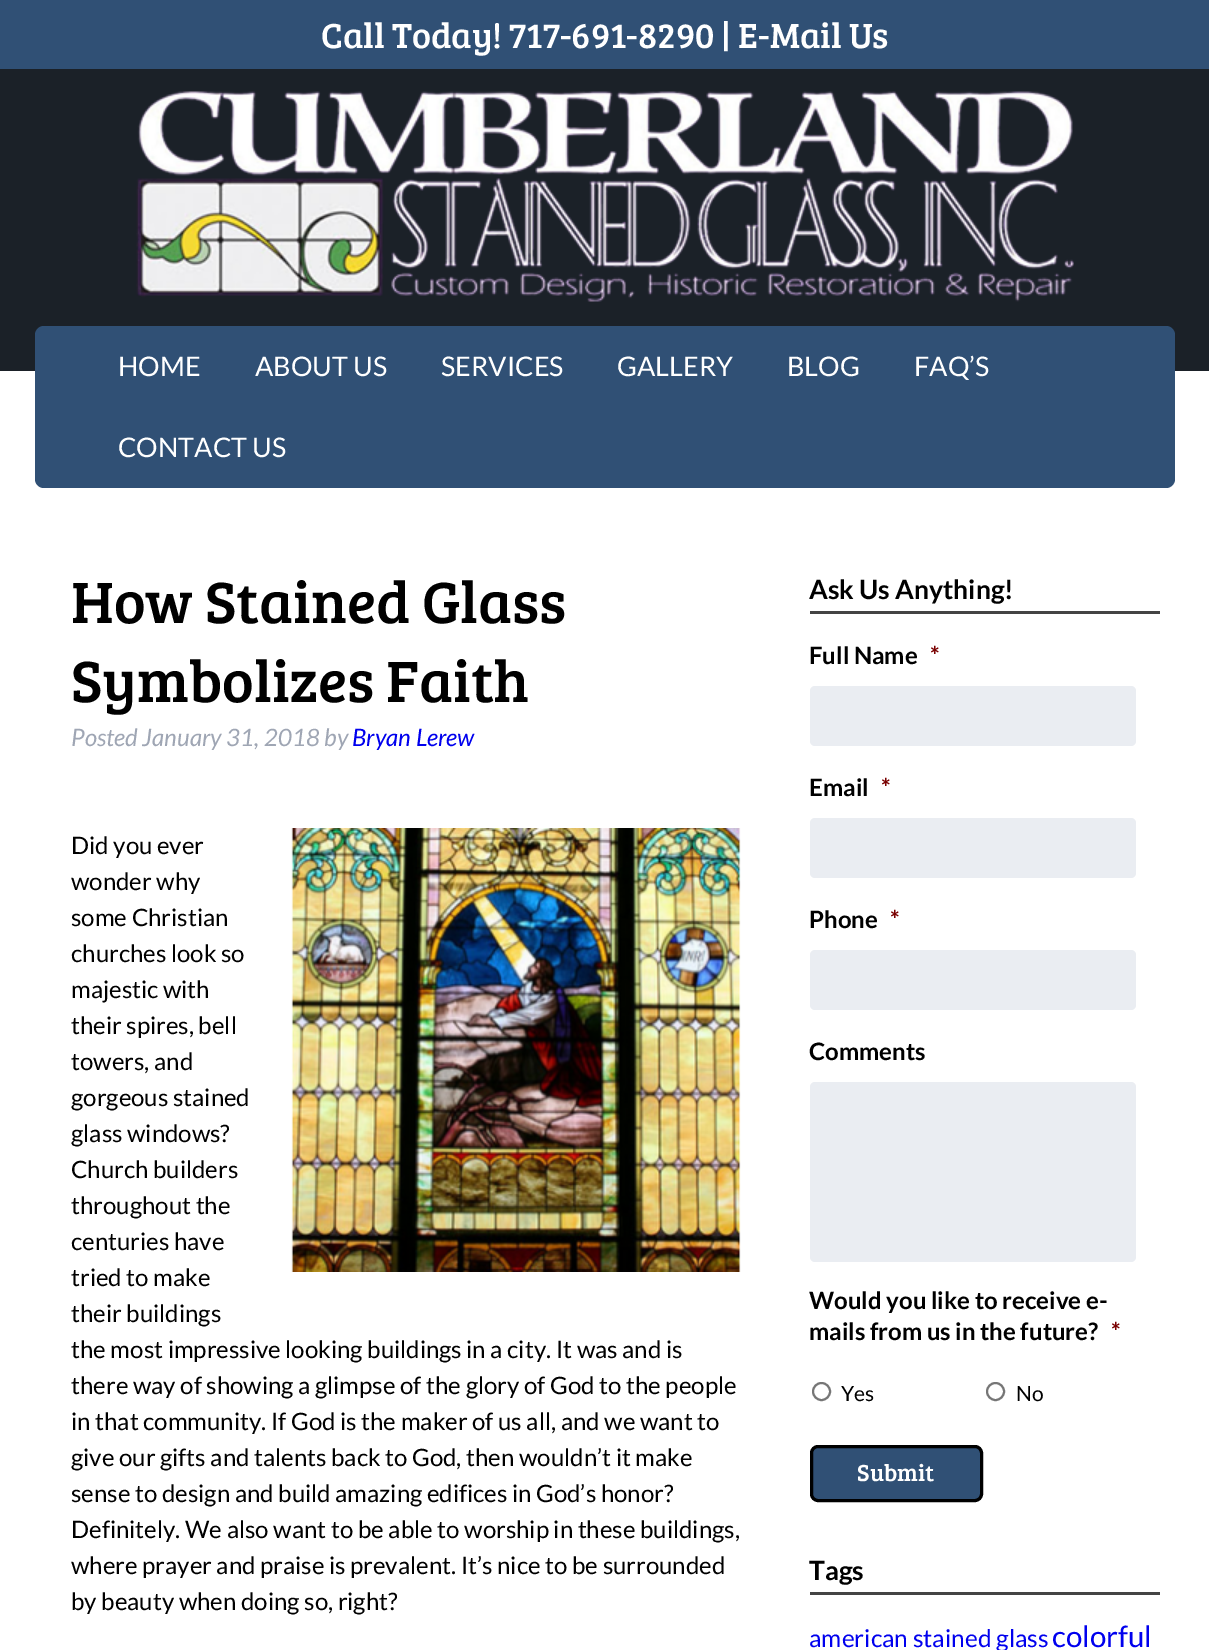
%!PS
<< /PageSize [1209 1650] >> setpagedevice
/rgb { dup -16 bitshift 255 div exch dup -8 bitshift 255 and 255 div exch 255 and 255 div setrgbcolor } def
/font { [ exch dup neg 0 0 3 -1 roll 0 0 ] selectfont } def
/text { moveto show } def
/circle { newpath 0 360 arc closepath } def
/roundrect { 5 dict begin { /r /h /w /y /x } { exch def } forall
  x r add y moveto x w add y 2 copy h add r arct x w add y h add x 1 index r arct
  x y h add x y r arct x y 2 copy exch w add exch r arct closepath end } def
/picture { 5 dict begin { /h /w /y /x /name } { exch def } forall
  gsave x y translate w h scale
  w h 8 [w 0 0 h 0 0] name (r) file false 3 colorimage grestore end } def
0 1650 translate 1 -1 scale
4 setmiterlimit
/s1 { /BreeSerif-Regular 36 font 16#FFFFFF rgb } def
/s2 { /Lato-Regular 27 font 16#FFFFFF rgb } def
/s3 { /BreeSerif-Regular 60 font 16#000000 rgb } def
/s4 { /Lato-Italic 24 font 16#9FA6B4 rgb } def
/s5 { /Lato-Italic 24 font 16#0000EE rgb } def
/s6 { /Lato-Regular 24 font 16#000000 rgb } def
/s7 { /Lato-Bold 26.5 font 16#000000 rgb } def
/s8 { /Lato-Bold 24 font 16#000000 rgb } def
/s9 { /Lato-Bold 24 font 16#790000 rgb } def
/s10 { /Lato-Regular 21 font 16#000000 rgb } def
/s11 { /BreeSerif-Regular 24 font 16#FFFFFF rgb } def
/s12 { /Lato-Regular 24.5 font 16#0000EE rgb } def
/s13 { /Lato-Regular 29.5 font 16#0000EE rgb } def
16#FFFFFF rgb
0 0 1209 1650 rectfill
16#305075 rgb
0 0 1209 69 rectfill
s1
(Call Today! 717-691-8290 | E-Mail Us) 321 48 text
16#1B2128 rgb
0 69 1209 302 rectfill
(pic1.raw) 136 91 938 211 picture
16#305075 rgb
35 326 1140 162 9 roundrect fill
s2
(HOME) 118 376 text
(ABOUT US) 255 376 text
(SERVICES) 441 376 text
(GALLERY) 617 376 text
(BLOG) 787 376 text
(FAQ’S) 914 376 text
(CONTACT US) 118 457 text
s3
(How Stained Glass) 71 623 text
(Symbolizes Faith) 71 702 text
s4
(Posted January 31, 2018 by) 71 746 text
s5
(Bryan Lerew) 352 746 text
s6
(Did you ever) 71 854 text
(pic2.raw) 291 828 450 444 picture
(wonder why) 71 890 text
(some Christian) 71 926 text
(churches look so) 71 962 text
(majestic with) 71 998 text
(their spires, bell) 71 1034 text
(towers, and) 71 1070 text
(gorgeous stained) 71 1106 text
(glass windows?) 71 1142 text
(Church builders) 71 1178 text
(throughout the) 71 1214 text
(centuries have) 71 1250 text
(tried to make) 71 1286 text
(their buildings) 71 1322 text
(the most impressive looking buildings in a city. It was and is) 71 1358 text
(there way of showing a glimpse of the glory of God to the people) 71 1394 text
(in that community. If God is the maker of us all, and we want to) 71 1430 text
(give our gifts and talents back to God, then wouldn’t it make) 71 1466 text
(sense to design and build amazing edifices in God’s honor?) 71 1502 text
(Definitely. We also want to be able to worship in these buildings,) 71 1538 text
(where prayer and praise is prevalent. It’s nice to be surrounded) 71 1574 text
(by beauty when doing so, right?) 71 1610 text
16#444444 rgb
810 611 350 3 rectfill
s7
(Ask Us Anything!) 809 599 text
s8
(Full Name) 809 664 text
s9
(*) 930 664 text
16#EAEDF2 rgb
810 686 326 60 5 roundrect fill
s8
(Email) 809 796 text
s9
(*) 881 796 text
16#EAEDF2 rgb
810 818 326 60 5 roundrect fill
s8
(Phone) 809 928 text
s9
(*) 890 928 text
16#EAEDF2 rgb
810 950 326 60 5 roundrect fill
s8
(Comments) 809 1060 text
16#EAEDF2 rgb
810 1082 326 180 5 roundrect fill
s8
(Would you like to receive e-) 809 1309 text
(mails from us in the future?) 809 1340 text
s9
(*) 1111 1340 text
16#767676 rgb
2 setlinewidth
821.5 1391.5 8.5 circle stroke
s10
(Yes) 841 1401 text
16#767676 rgb
995.5 1391.5 8.5 circle stroke
s10
(No) 1016 1401 text
16#305075 rgb
811.5 1446.5 170 54 6.5 roundrect gsave fill grestore
16#000000 rgb
3 setlinewidth
stroke
s11
(Submit) 857 1481 text
16#444444 rgb
810 1592 350 3 rectfill
s7
(Tags) 809 1580 text
s12
(american stained glass) 809 1647 text
s13
(colorful) 1052 1647 text
showpage
